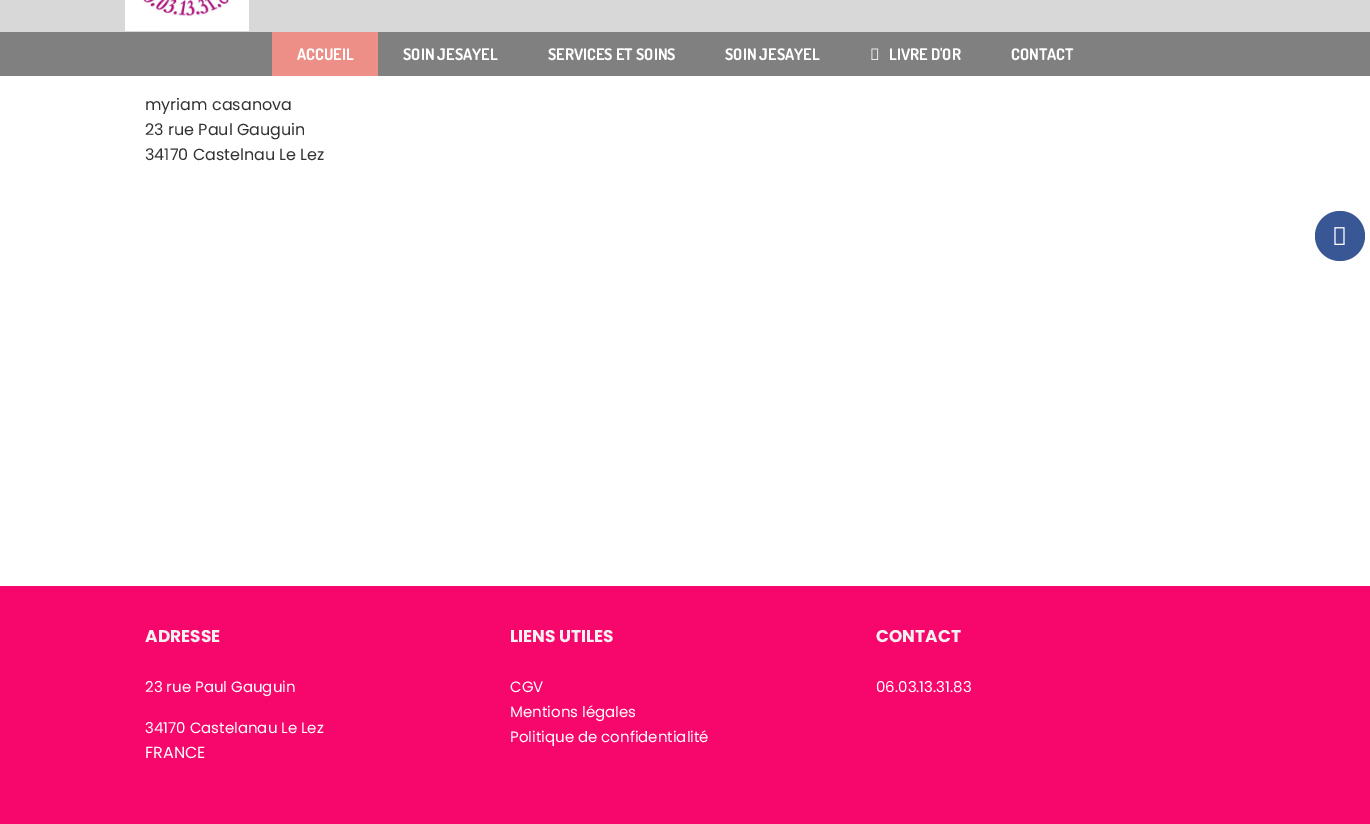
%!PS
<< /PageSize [1370 824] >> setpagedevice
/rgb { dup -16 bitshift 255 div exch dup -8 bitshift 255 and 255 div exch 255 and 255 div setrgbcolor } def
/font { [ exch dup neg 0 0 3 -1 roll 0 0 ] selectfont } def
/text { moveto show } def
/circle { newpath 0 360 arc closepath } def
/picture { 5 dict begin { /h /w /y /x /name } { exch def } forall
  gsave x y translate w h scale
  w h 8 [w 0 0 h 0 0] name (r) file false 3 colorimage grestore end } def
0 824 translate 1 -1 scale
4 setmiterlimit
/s1 { /Dosis-Bold 16 font 16#FFFFFF rgb } def
/s2 { /Poppins-Regular 16 font 16#333333 rgb } def
/s3 { /Poppins-Bold 17 font 16#F4F1F1 rgb } def
/s4 { /Poppins-Regular 15 font 16#FFFFFF rgb } def
/s5 { /Poppins-Regular 16 font 16#FFFFFF rgb } def
16#FFFFFF rgb
0 0 1370 824 rectfill
16#D8D8D8 rgb
0 0 1370 32 rectfill
(pic1.raw) 125 0 124 31 picture
16#808080 rgb
0 32 1370 44 rectfill
16#ED8F86 rgb
272 32 106 44 rectfill
s1
(ACCUEIL) 297 60 text
(SOIN JESAYEL) 403 60 text
(SERVICES ET SOINS) 548 60 text
(SOIN JESAYEL) 725 60 text
(pic2.raw) 871 48 8 12 picture
(LIVRE D'OR) 889 60 text
(CONTACT) 1011 60 text
s2
(myriam casanova) 145 110 text
(23 rue Paul Gauguin) 145 135 text
(34170 Castelnau Le Lez) 145 160 text
16#F7076C rgb
0 587 1370 237 rectfill
16#F20B6C rgb
0 586 1370 1 rectfill
s3
(ADRESSE) 145 642 text
s4
(23 rue Paul Gauguin) 145 692 text
(34170 Castelanau Le Lez) 145 733 text
s5
(FRANCE) 145 758 text
s3
(LIENS UTILES) 510 642 text
s4
(CGV) 510 692 text
(Mentions légales) 510 717 text
(Politique de confidentialité) 510 742 text
s3
(CONTACT) 876 642 text
s4
(06.03.13.31.83) 876 692 text
16#3A5795 rgb
1340 236 25 circle fill
(pic3.raw) 1334 227 11 18 picture
showpage
